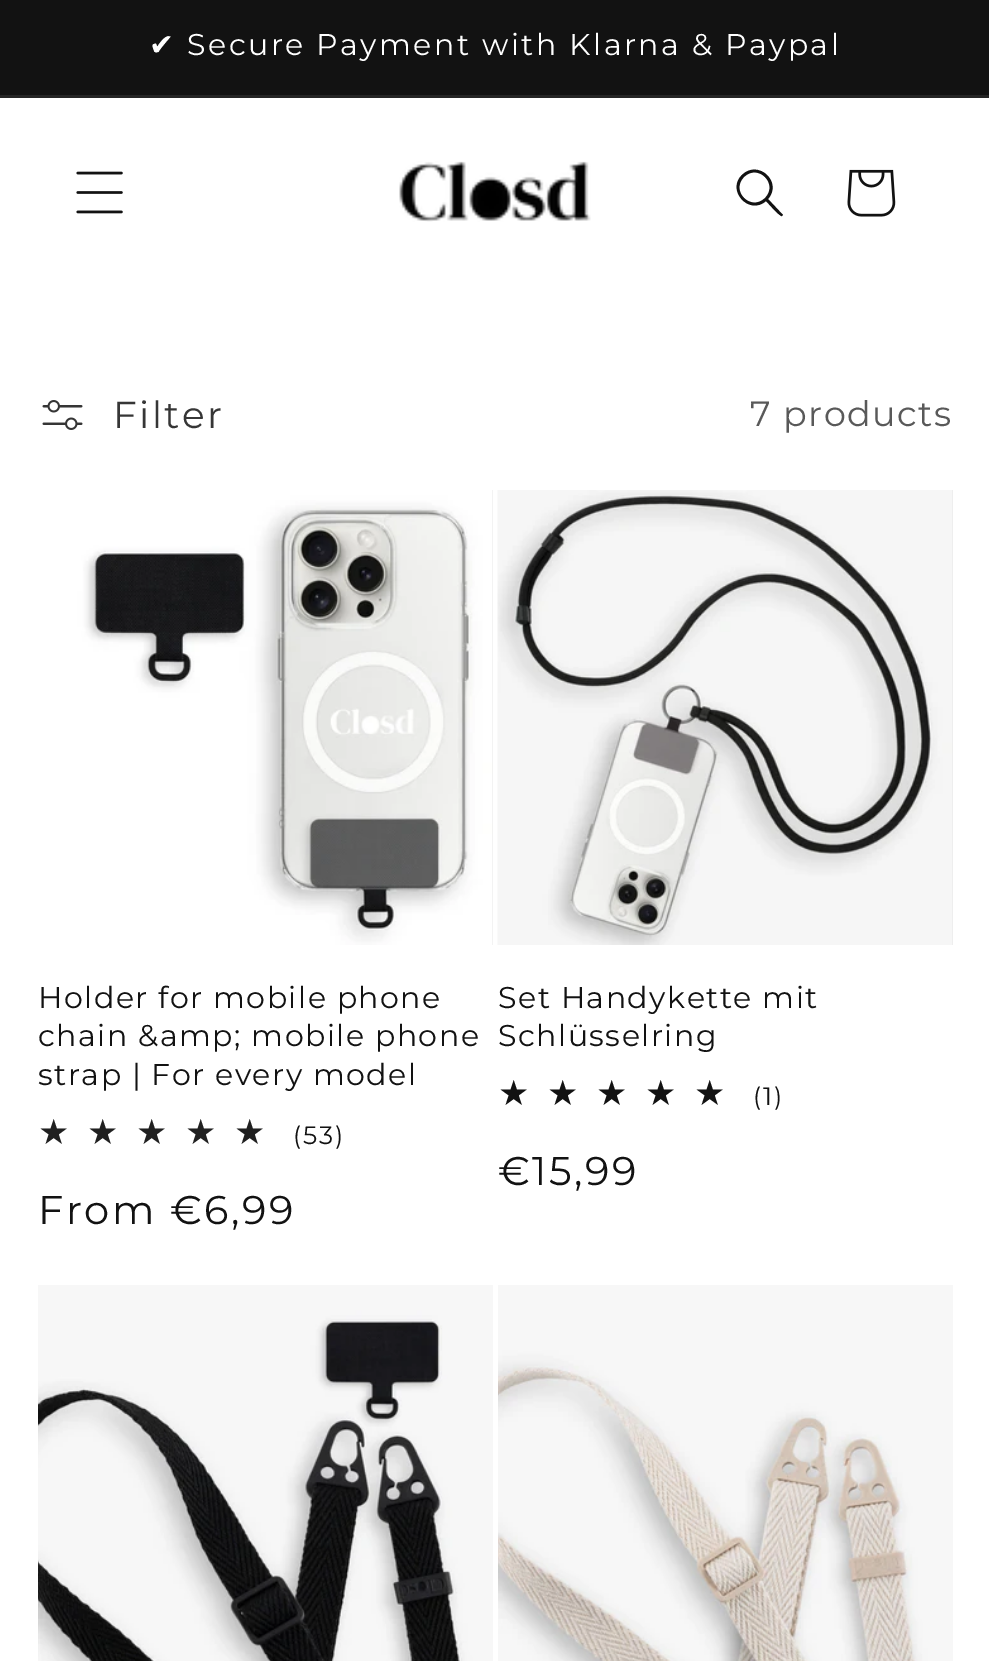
%!PS
<< /PageSize [989 1661] >> setpagedevice
/rgb { dup -16 bitshift 255 div exch dup -8 bitshift 255 and 255 div exch 255 and 255 div setrgbcolor } def
/font { [ exch dup neg 0 0 3 -1 roll 0 0 ] selectfont } def
/picture { 5 dict begin { /h /w /y /x /name } { exch def } forall
  gsave x y translate w h scale
  w h 8 [w 0 0 h 0 0] name (r) file false 3 colorimage grestore end } def
0 1661 translate 1 -1 scale
4 setmiterlimit
16#FFFFFF rgb
0 0 989 1661 rectfill
16#121212 rgb
0 0 989 95 rectfill
16#252525 rgb
0 95 989 3 rectfill
/DejaVuSans-Regular 30 font
16#FFFFFF rgb
149 55 moveto 2.5 0 (✔) ashow
/Montserrat-Regular 30 font
187 55 moveto 2.5 0 (Secure Payment with Klarna & Paypal) ashow
(pic1.raw) 76 171 47 43 picture
(pic2.raw) 399 161 192 61 picture
16#121212 rgb
765 198 moveto 751 212 730 191 744 177 curveto 758 163 779 184 765 198 curveto closepath 766 201 moveto 749 216 726 190 742 175 curveto 758 159 783 182 768 199 curveto 783 215 lineto 782 216 lineto 780 217 768 203 766 201 curveto closepath eofill
(pic3.raw) 847 169 49 48 picture
(pic4.raw) 42 400 41 30 picture
/Montserrat-Regular 37.5 font
16#363636 rgb
113 428 moveto 2.5 0 (Filter) ashow
/Montserrat-Regular 35 font
16#595959 rgb
750 426 moveto 1.5 0 (7 products) ashow
16#E7E7E7 rgb
492 490 1 455 rectfill
(pic5.raw) 38 490 455 455 picture
/Montserrat-Regular 30 font
16#121212 rgb
38 1008 moveto 1.5 0 (Holder for mobile phone) ashow
38 1046 moveto 1.5 0 (chain &amp; mobile phone) ashow
38 1085 moveto 1.5 0 (strap | For every model) ashow
/DejaVuSans-Regular 35 font
16#202020 rgb
38 1144 moveto 17.5 0 (★★★★★) ashow
/Montserrat-Regular 25 font
16#121212 rgb
293 1144 moveto 2 0 (\(53\)) ashow
/Montserrat-Regular 40 font
38 1224 moveto 2.5 0 (From €6,99) ashow
16#E7E7E7 rgb
952 490 1 455 rectfill
(pic6.raw) 497 490 456 455 picture
/Montserrat-Regular 30 font
16#121212 rgb
498 1008 moveto 1.5 0 (Set Handykette mit) ashow
498 1046 moveto 1.5 0 (Schlüsselring) ashow
/DejaVuSans-Regular 35 font
498 1105 moveto 17.5 0 (★★★★★) ashow
/Montserrat-Regular 25 font
753 1105 moveto 2 0 (\(1\)) ashow
/Montserrat-Regular 40 font
498 1185 moveto 2.5 0 (€15,99) ashow
(pic7.raw) 38 1285 455 376 picture
(pic8.raw) 498 1285 455 376 picture
showpage
